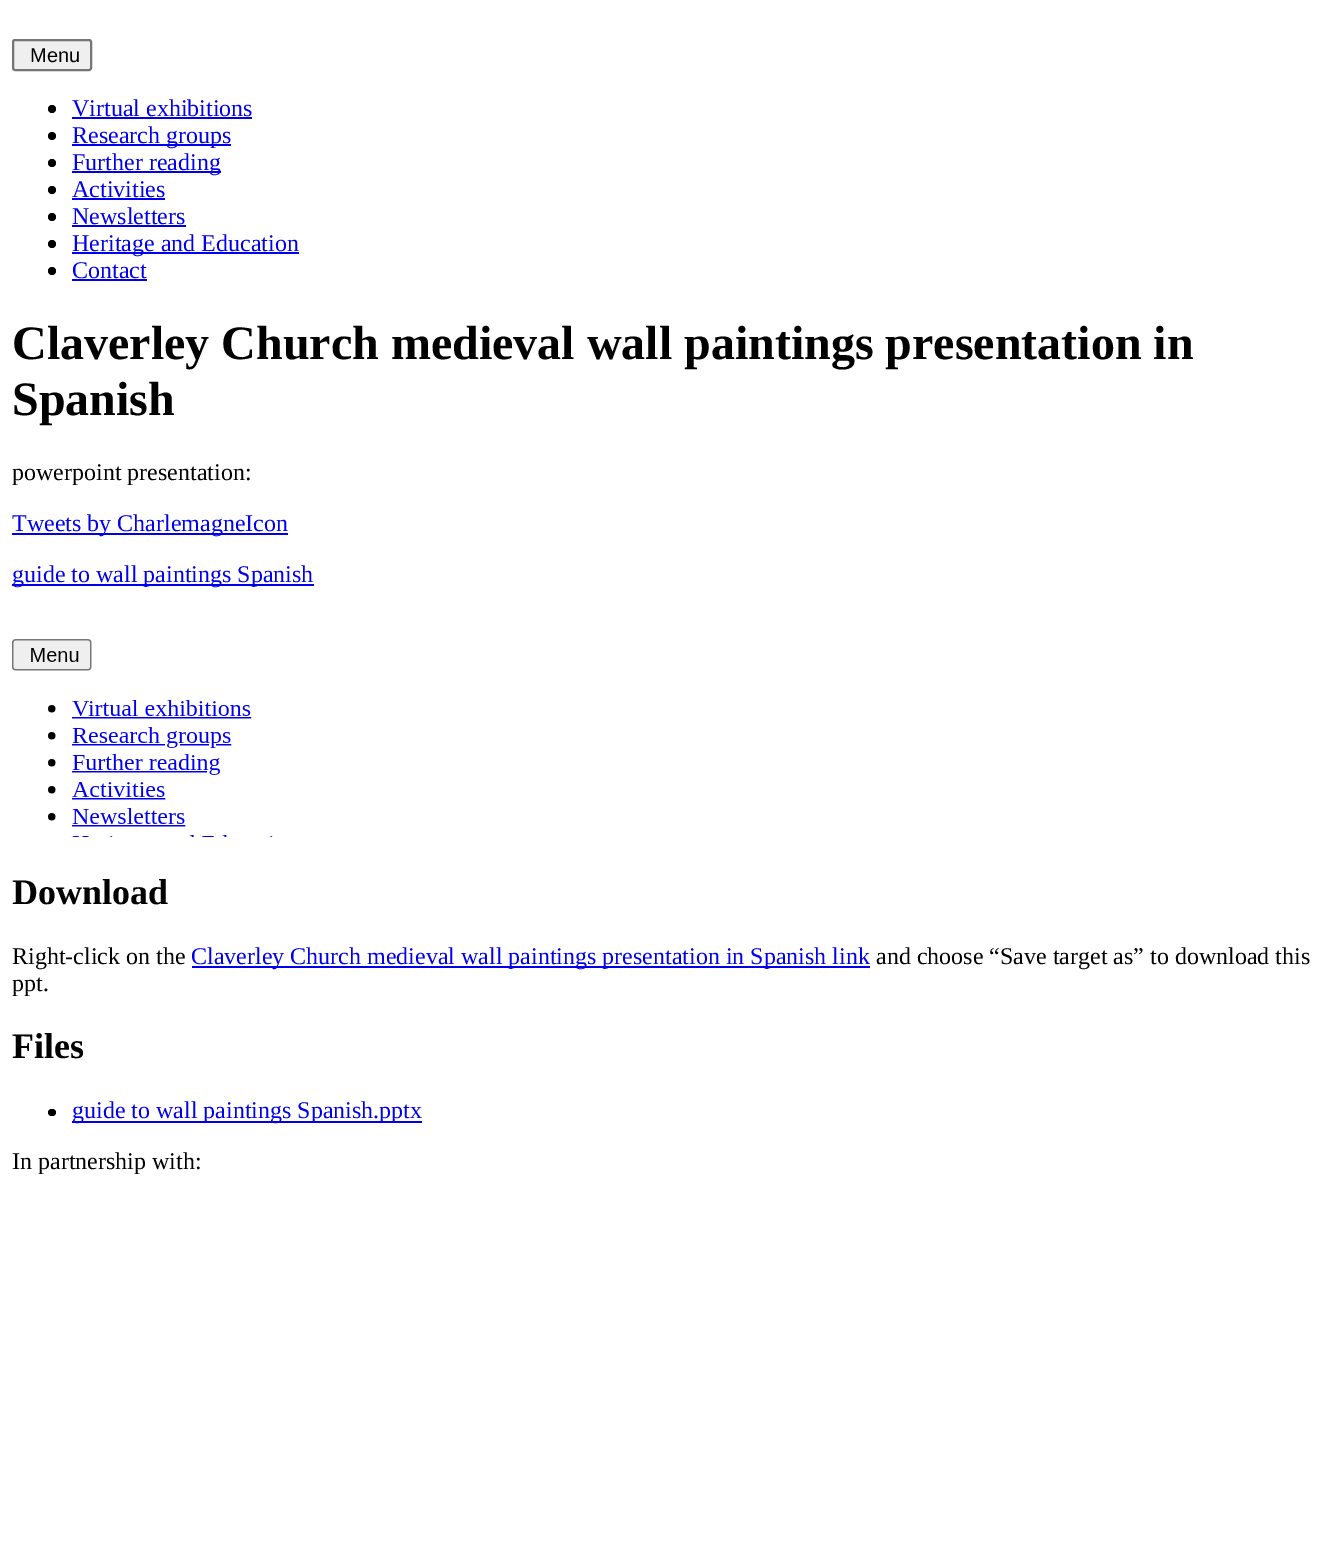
%!PS
<< /PageSize [1339 1556] >> setpagedevice
/rgb { dup -16 bitshift 255 div exch dup -8 bitshift 255 and 255 div exch 255 and 255 div setrgbcolor } def
/font { [ exch dup neg 0 0 3 -1 roll 0 0 ] selectfont } def
/text { moveto show } def
/circle { newpath 0 360 arc closepath } def
/roundrect { 5 dict begin { /r /h /w /y /x } { exch def } forall
  x r add y moveto x w add y 2 copy h add r arct x w add y h add x 1 index r arct
  x y h add x y r arct x y 2 copy exch w add exch r arct closepath end } def
/picture { 5 dict begin { /h /w /y /x /name } { exch def } forall
  gsave x y translate w h scale
  w h 8 [w 0 0 h 0 0] name (r) file false 3 colorimage grestore end } def
0 1556 translate 1 -1 scale
4 setmiterlimit
/s1 { /LiberationSans-Regular 20 font 16#000000 rgb } def
/s2 { /LiberationSerif-Regular 24 font 16#0000EE rgb } def
/s3 { /LiberationSerif-Bold 48 font 16#000000 rgb } def
/s4 { /LiberationSerif-Regular 24 font 16#000000 rgb } def
/s5 { /LiberationSerif-Bold 36 font 16#000000 rgb } def
16#FFFFFF rgb
0 0 1339 1556 rectfill
16#EFEFEF rgb
13 40 78 30 2 roundrect gsave fill grestore
16#767676 rgb
2 setlinewidth
stroke
s1
(Menu) 30 62 text
52 109 4 circle fill
s2
(Virtual exhibitions) 72 116 text
72 117 180 2 rectfill
16#000000 rgb
52 136 4 circle fill
16#0000EE rgb
72 144 159 2 rectfill
(Research groups) 72 143 text
16#000000 rgb
52 163 4 circle fill
16#0000EE rgb
72 171 149 2 rectfill
(Further reading) 72 170 text
16#000000 rgb
52 190 4 circle fill
s2
(Activities) 72 197 text
72 198 93 2 rectfill
16#000000 rgb
52 217 4 circle fill
s2
(Newsletters) 72 224 text
72 225 114 2 rectfill
16#000000 rgb
52 244 4 circle fill
16#0000EE rgb
72 252 227 2 rectfill
(Heritage and Education) 72 251 text
16#000000 rgb
52 271 4 circle fill
s2
(Contact) 72 278 text
72 279 75 2 rectfill
s3
(Claverley Church medieval wall paintings presentation in) 12 359 text
(Spanish) 12 415 text
s4
(powerpoint presentation:) 12 480 text
16#0000EE rgb
12 533 276 2 rectfill
(Tweets by CharlemagneIcon) 12 531 text
12 584 302 2 rectfill
(guide to wall paintings Spanish) 12 582 text
(pic1.raw) 12 639 261 198 picture
s5
(Download) 12 904 text
s4
(Right-click on the) 12 964 text
16#0000EE rgb
192 966 678 2 rectfill
(Claverley Church medieval wall paintings presentation in Spanish link) 191 964 text
s4
(and choose “Save target as” to download this) 876 964 text
(ppt.) 12 991 text
s5
(Files) 12 1058 text
48 1109 8 7 3.5 roundrect fill
16#0000EE rgb
72 1121 350 2 rectfill
s2
(guide to wall paintings Spanish.pptx) 72 1118 text
s4
(In partnership with:) 12 1169 text
showpage
